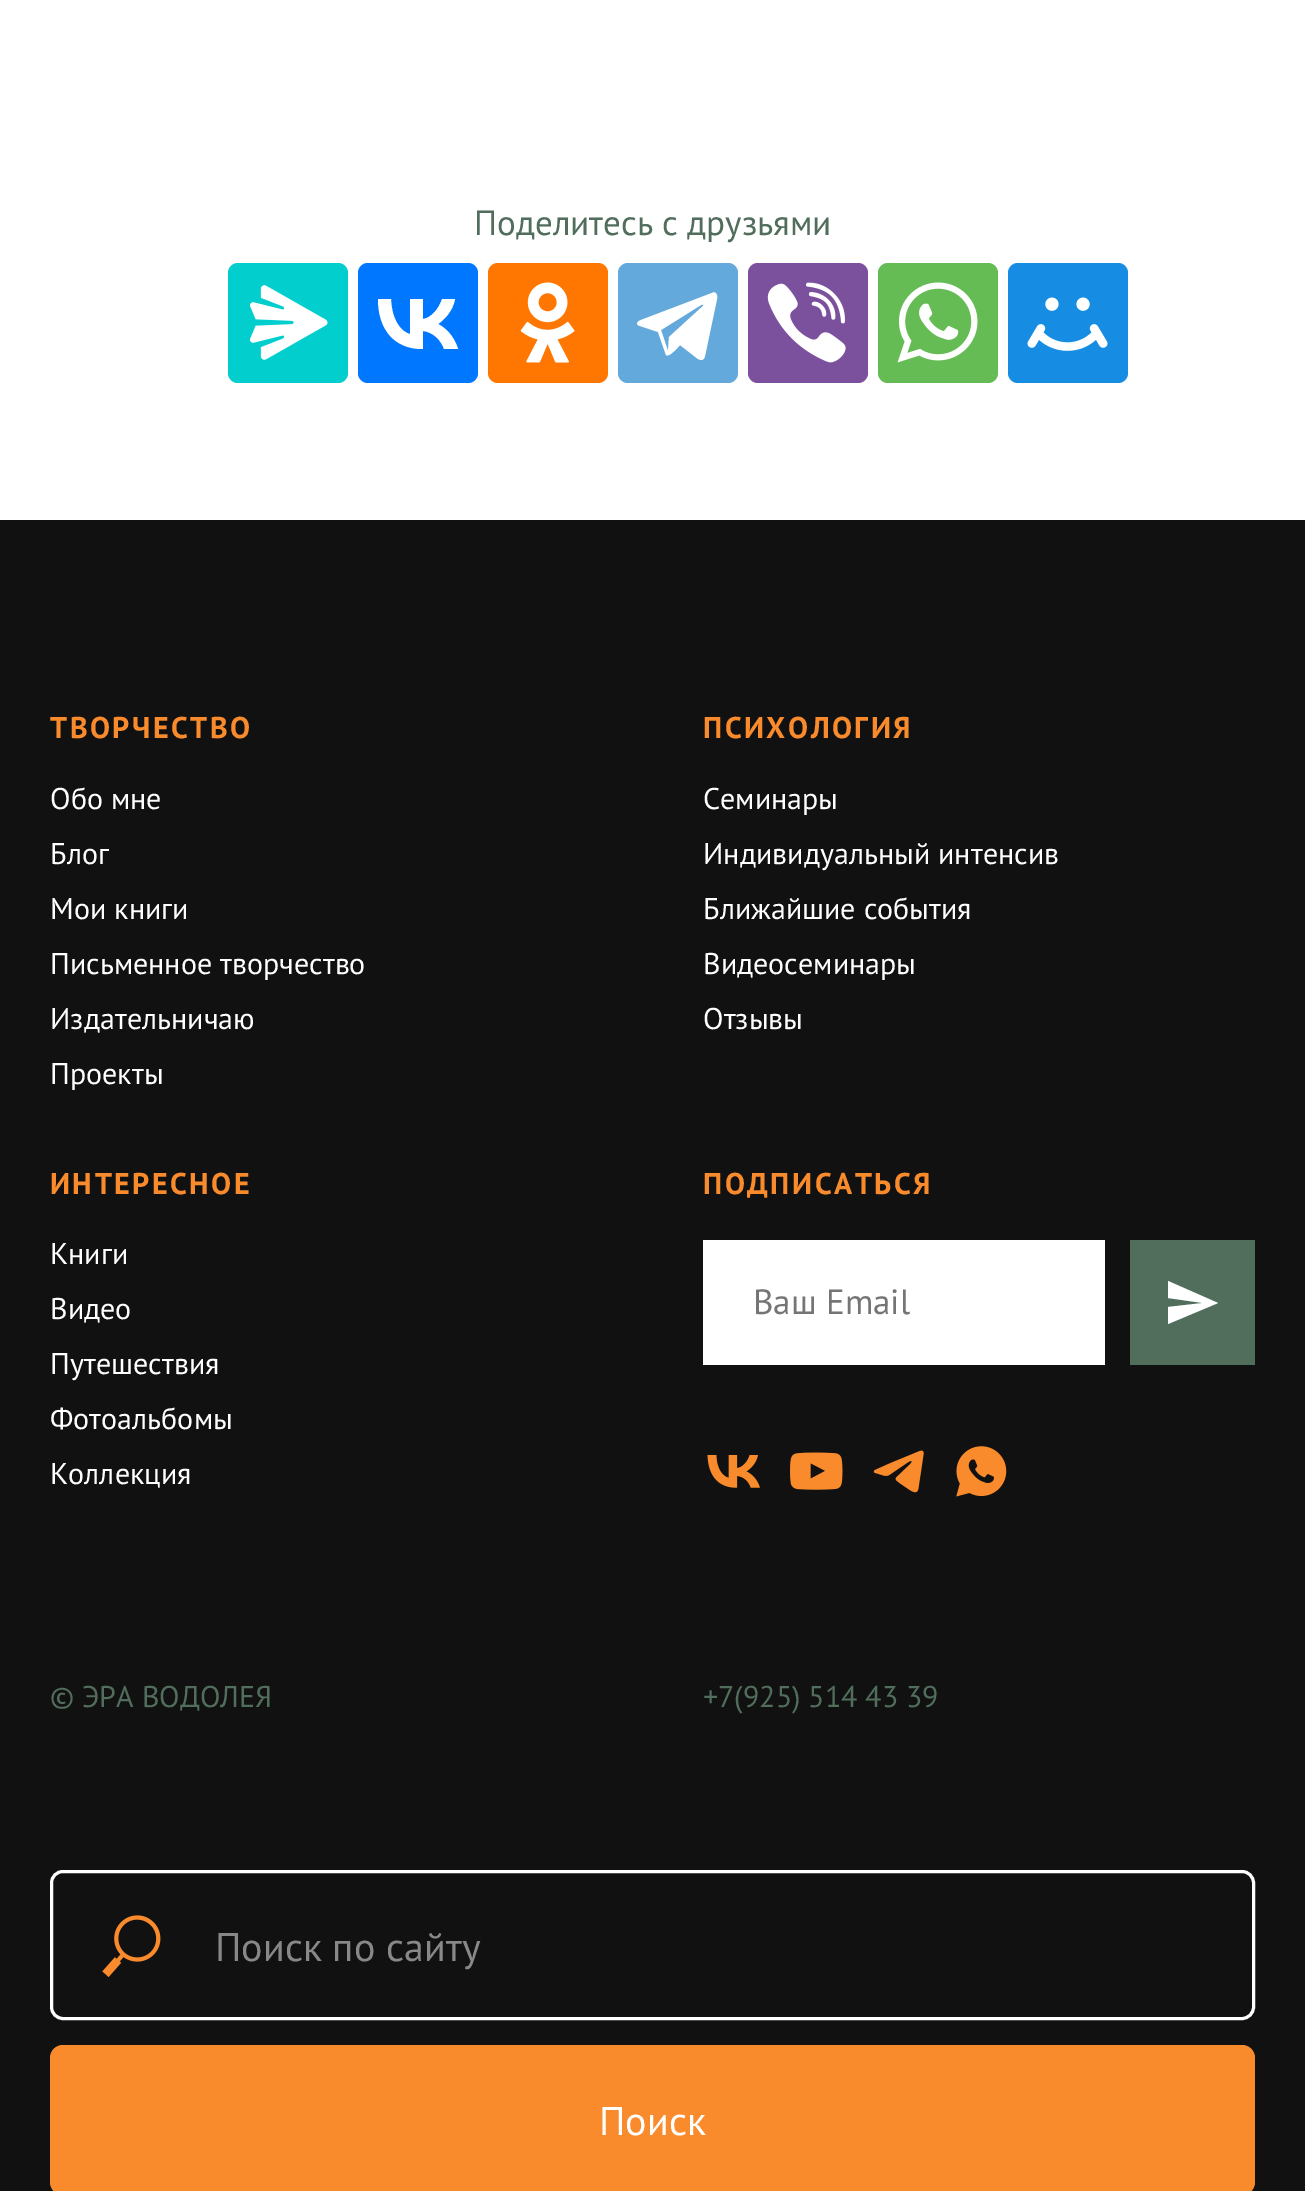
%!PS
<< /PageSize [1305 2191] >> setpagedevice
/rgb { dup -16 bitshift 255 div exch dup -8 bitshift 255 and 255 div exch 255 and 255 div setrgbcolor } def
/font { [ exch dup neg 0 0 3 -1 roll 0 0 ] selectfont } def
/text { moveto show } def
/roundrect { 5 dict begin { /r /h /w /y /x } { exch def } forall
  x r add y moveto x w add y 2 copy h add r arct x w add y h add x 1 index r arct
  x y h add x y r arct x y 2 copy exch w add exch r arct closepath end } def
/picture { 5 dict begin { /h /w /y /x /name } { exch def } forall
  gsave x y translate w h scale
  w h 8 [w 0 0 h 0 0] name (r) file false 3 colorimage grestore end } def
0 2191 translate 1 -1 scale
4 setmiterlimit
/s1 { /PTSans-Regular 35 font 16#516D5B rgb } def
/s2 { /PTSans-Regular 30 font 16#FFFFFF rgb } def
/s3 { /PTSans-Regular 35 font 16#757575 rgb } def
/s4 { /PTSans-Regular 30 font 16#516D5B rgb } def
/s5 { /PTSans-Regular 40 font 16#888888 rgb } def
/s6 { /PTSans-Regular 40 font 16#FFFFFF rgb } def
16#FFFFFF rgb
0 0 1305 2191 rectfill
s1
(Поделитесь с друзьями) 474 235 text
16#03CECE rgb
228 263 120 120 10 roundrect fill
(pic1.raw) 250 285 78 75 picture
16#0077FF rgb
358 263 120 120 10 roundrect fill
16#FFFFFF rgb
422 349 moveto 395 349 378 330 378 299 curveto 391 299 lineto 392 322 402 332 410 334 curveto 410 299 lineto 423 299 lineto 423 319 lineto 431 318 439 309 442 299 curveto 455 299 lineto 453 311 444 320 438 324 curveto 444 327 454 335 458 349 curveto 444 349 lineto 441 340 433 332 423 331 curveto 423 349 lineto closepath fill
16#FF7700 rgb
488 263 120 120 10 roundrect fill
(pic2.raw) 520 282 55 81 picture
16#64A9DC rgb
618 263 120 120 10 roundrect fill
16#FFFFFF rgb
712 293 moveto 641 320 lineto 636 322 636 325 640 326 curveto 658 332 lineto 666 355 lineto 669 358 679 346 680 345 curveto 698 359 lineto 702 361 704 360 705 356 curveto 717 299 lineto 718 294 715 291 712 293 curveto closepath 661 330 moveto 701 305 lineto 703 304 704 305 703 306 curveto 669 337 lineto 668 351 lineto closepath eofill
16#7B519D rgb
748 263 120 120 10 roundrect fill
(pic3.raw) 767 282 79 81 picture
16#65BC54 rgb
878 263 120 120 10 roundrect fill
(pic4.raw) 897 282 81 81 picture
16#168DE2 rgb
1008 263 120 120 10 roundrect fill
(pic5.raw) 1027 297 81 54 picture
16#111111 rgb
0 520 1305 1671 rectfill
/PTSans-Bold 30 font
16#F98B2C rgb
50 738 moveto 2.5 0 (ТВОРЧЕСТВО) ashow
s2
(Обо мне) 50 809 text
(Блог) 50 864 text
(Мои книги) 50 919 text
(Письменное творчество) 50 974 text
(Издательничаю) 50 1029 text
(Проекты) 50 1084 text
/PTSans-Bold 30 font
16#F98B2C rgb
703 738 moveto 2.5 0 (ПСИХОЛОГИЯ) ashow
s2
(Семинары) 703 809 text
(Индивидуальный интенсив) 703 864 text
(Ближайшие события) 703 919 text
(Видеосеминары) 703 974 text
(Отзывы) 703 1029 text
/PTSans-Bold 30 font
16#F98B2C rgb
50 1194 moveto 2.5 0 (ИНТЕРЕСНОЕ) ashow
s2
(Книги) 50 1264 text
(Видео) 50 1319 text
(Путешествия) 50 1374 text
(Фотоальбомы) 50 1429 text
(Коллекция) 50 1484 text
/PTSans-Bold 30 font
16#F98B2C rgb
703 1194 moveto 2.5 0 (ПОДПИСАТЬСЯ) ashow
16#FFFFFF rgb
703 1240 402 125 rectfill
s3
(Ваш Email) 753 1314 text
16#516D5B rgb
1130 1240 125 125 rectfill
16#FFFFFF rgb
1168 1324 moveto 1218 1303 lineto 1168 1281 lineto 1168 1298 lineto 1203 1303 lineto 1168 1307 lineto closepath fill
(pic6.raw) 707 1455 53 33 picture
(pic7.raw) 790 1452 53 38 picture
(pic8.raw) 873 1450 51 43 picture
(pic9.raw) 956 1446 51 51 picture
s4
(© ЭРА ВОДОЛЕЯ) 50 1707 text
(+7\(925\) 514 43 39) 703 1707 text
16#FFFFFF rgb
3 setlinewidth
51.5 1871.5 1202 147 11.5 roundrect stroke
(pic10.raw) 102 1915 59 62 picture
s5
(Поиск по сайту) 215 1961 text
16#F98B2C rgb
50 2045 1205 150 13 roundrect fill
s6
(Поиск) 599 2135 text
showpage
